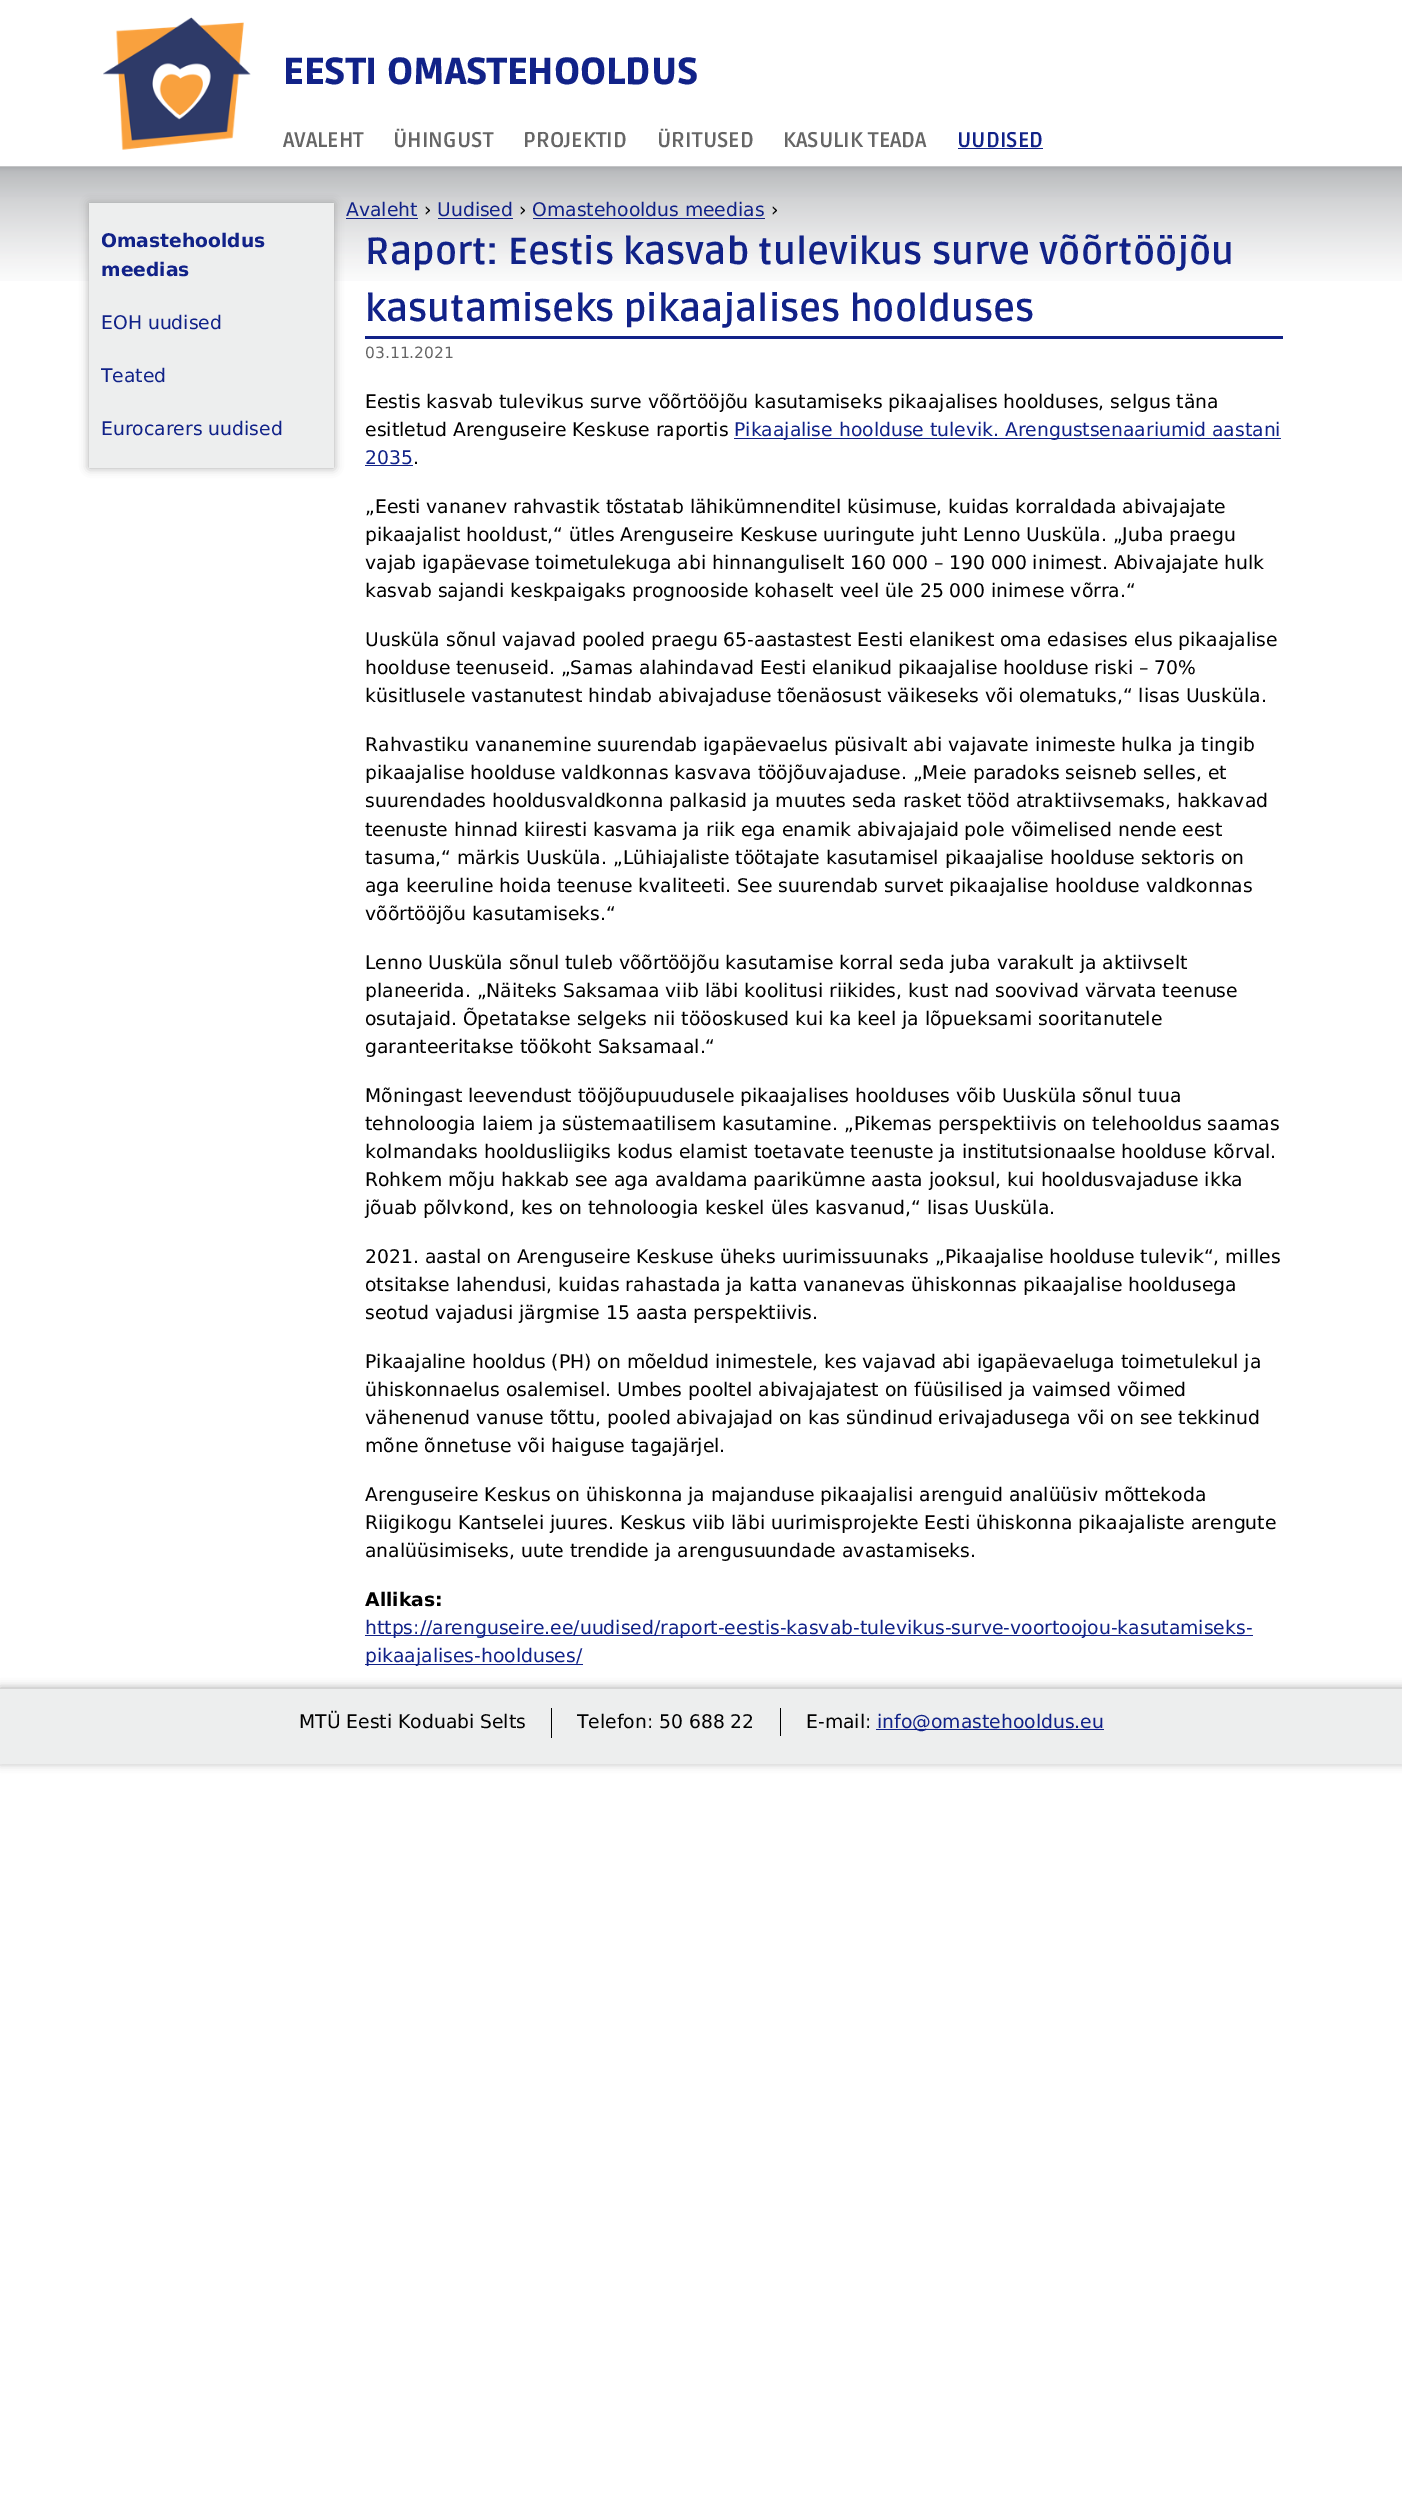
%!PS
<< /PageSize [1402 2513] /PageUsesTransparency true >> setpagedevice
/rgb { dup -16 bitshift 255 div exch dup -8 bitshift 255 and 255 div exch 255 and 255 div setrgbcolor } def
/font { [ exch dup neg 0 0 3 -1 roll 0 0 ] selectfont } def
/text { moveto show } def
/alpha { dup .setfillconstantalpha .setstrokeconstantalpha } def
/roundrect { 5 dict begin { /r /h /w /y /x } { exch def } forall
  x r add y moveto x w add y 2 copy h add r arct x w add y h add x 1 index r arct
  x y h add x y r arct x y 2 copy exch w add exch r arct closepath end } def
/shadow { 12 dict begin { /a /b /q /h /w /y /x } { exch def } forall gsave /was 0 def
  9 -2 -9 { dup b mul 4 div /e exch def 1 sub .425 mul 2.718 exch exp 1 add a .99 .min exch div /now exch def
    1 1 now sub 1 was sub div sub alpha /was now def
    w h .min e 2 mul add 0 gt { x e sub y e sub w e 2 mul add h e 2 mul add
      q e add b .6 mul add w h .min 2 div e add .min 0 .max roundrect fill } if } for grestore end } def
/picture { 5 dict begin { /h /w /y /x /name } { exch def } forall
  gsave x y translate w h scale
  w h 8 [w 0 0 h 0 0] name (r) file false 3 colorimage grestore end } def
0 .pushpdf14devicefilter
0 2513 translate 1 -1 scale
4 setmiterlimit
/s1 { /Ruda-Black 37.5 font 16#112288 rgb } def
/s2 { /Ruda-Bold 21.25 font 16#666666 rgb } def
/s3 { /Ruda-Bold 21.25 font 16#112288 rgb } def
/s4 { /DejaVuSans-Bold 18.75 font 16#112288 rgb } def
/s5 { /DejaVuSans-Regular 18.75 font 16#112288 rgb } def
/s6 { /DejaVuSans-Regular 18.75 font 16#000000 rgb } def
/s7 { /Ruda-Bold 37.5 font 16#112288 rgb } def
/s8 { /DejaVuSans-Regular 15.5 font 16#666666 rgb } def
/s9 { /DejaVuSans-Bold 18.75 font 16#000000 rgb } def
16#FFFFFF rgb
0 0 1402 2513 rectfill
(pic1.raw) 0 166 1402 115 picture
(pic2.raw) 103 17 148 133 picture
s1
(EESTI OMASTEHOOLDUS) 283 84 text
s2
(AVALEHT) 283 147 text
(ÜHINGUST) 393 147 text
(PROJEKTID) 523 147 text
(ÜRITUSED) 657 147 text
(KASULIK TEADA) 783 147 text
s3
(UUDISED) 957 147 text
958 148 85 1 rectfill
346 218 72 1 rectfill
16#969696 rgb
89 203 245 265 0 4.5 0.8 shadow
16#EDEEEE rgb
89 203 245 265 rectfill
s4
(Omastehooldus) 101 247 text
(meedias) 101 276 text
s5
(EOH uudised) 101 329 text
(Teated) 101 382 text
(Eurocarers uudised) 101 435 text
(Avaleht) 346 216 text
s6
(›) 424 216 text
s5
(Uudised) 437 216 text
438 218 75 1 rectfill
s6
(›) 519 216 text
s5
(Omastehooldus meedias) 532 216 text
533 218 232 1 rectfill
s6
(›) 771 216 text
16#112288 rgb
365 336 918 3 rectfill
s7
(Raport: Eestis kasvab tulevikus surve võõrtööjõu) 365 264 text
(kasutamiseks pikaajalises hoolduses) 365 321 text
s8
(03.11.2021) 365 358 text
s6
(Eestis kasvab tulevikus surve võõrtööjõu kasutamiseks pikaajalises hoolduses, selgus täna) 365 408 text
(esitletud Arenguseire Keskuse raportis) 365 436 text
16#112288 rgb
734 438 547 1 rectfill
(Pikaajalise hoolduse tulevik. Arengustsenaariumid aastani) 734 436 text
(2035) 365 464 text
365 465 48 1 rectfill
s6
(.) 413 464 text
(„Eesti vananev rahvastik tõstatab lähikümnenditel küsimuse, kuidas korraldada abivajajate) 365 513 text
(pikaajalist hooldust,“ ütles Arenguseire Keskuse uuringute juht Lenno Uusküla. „Juba praegu) 365 541 text
(vajab igapäevase toimetulekuga abi hinnanguliselt 160 000 – 190 000 inimest. Abivajajate hulk) 365 569 text
(kasvab sajandi keskpaigaks prognooside kohaselt veel üle 25 000 inimese võrra.“) 365 597 text
(Uusküla sõnul vajavad pooled praegu 65-aastastest Eesti elanikest oma edasises elus pikaajalise) 365 646 text
(hoolduse teenuseid. „Samas alahindavad Eesti elanikud pikaajalise hoolduse riski – 70%) 365 674 text
(küsitlusele vastanutest hindab abivajaduse tõenäosust väikeseks või olematuks,“ lisas Uusküla.) 365 702 text
(Rahvastiku vananemine suurendab igapäevaelus püsivalt abi vajavate inimeste hulka ja tingib) 365 751 text
(pikaajalise hoolduse valdkonnas kasvava tööjõuvajaduse. „Meie paradoks seisneb selles, et) 365 779 text
(suurendades hooldusvaldkonna palkasid ja muutes seda rasket tööd atraktiivsemaks, hakkavad) 365 807 text
(teenuste hinnad kiiresti kasvama ja riik ega enamik abivajajaid pole võimelised nende eest) 365 836 text
(tasuma,“ märkis Uusküla. „Lühiajaliste töötajate kasutamisel pikaajalise hoolduse sektoris on) 365 864 text
(aga keeruline hoida teenuse kvaliteeti. See suurendab survet pikaajalise hoolduse valdkonnas) 365 892 text
(võõrtööjõu kasutamiseks.“) 365 920 text
(Lenno Uusküla sõnul tuleb võõrtööjõu kasutamise korral seda juba varakult ja aktiivselt) 365 969 text
(planeerida. „Näiteks Saksamaa viib läbi koolitusi riikides, kust nad soovivad värvata teenuse) 365 997 text
(osutajaid. Õpetatakse selgeks nii tööoskused kui ka keel ja lõpueksami sooritanutele) 365 1025 text
(garanteeritakse töökoht Saksamaal.“) 365 1053 text
(Mõningast leevendust tööjõupuudusele pikaajalises hoolduses võib Uusküla sõnul tuua) 365 1102 text
(tehnoloogia laiem ja süstemaatilisem kasutamine. „Pikemas perspektiivis on telehooldus saamas) 365 1130 text
(kolmandaks hooldusliigiks kodus elamist toetavate teenuste ja institutsionaalse hoolduse kõrval.) 365 1158 text
(Rohkem mõju hakkab see aga avaldama paarikümne aasta jooksul, kui hooldusvajaduse ikka) 365 1186 text
(jõuab põlvkond, kes on tehnoloogia keskel üles kasvanud,“ lisas Uusküla.) 365 1214 text
(2021. aastal on Arenguseire Keskuse üheks uurimissuunaks „Pikaajalise hoolduse tulevik“, milles) 365 1263 text
(otsitakse lahendusi, kuidas rahastada ja katta vananevas ühiskonnas pikaajalise hooldusega) 365 1291 text
(seotud vajadusi järgmise 15 aasta perspektiivis.) 365 1319 text
(Pikaajaline hooldus \(PH\) on mõeldud inimestele, kes vajavad abi igapäevaeluga toimetulekul ja) 365 1368 text
(ühiskonnaelus osalemisel. Umbes pooltel abivajajatest on füüsilised ja vaimsed võimed) 365 1396 text
(vähenenud vanuse tõttu, pooled abivajajad on kas sündinud erivajadusega või on see tekkinud) 365 1424 text
(mõne õnnetuse või haiguse tagajärjel.) 365 1452 text
(Arenguseire Keskus on ühiskonna ja majanduse pikaajalisi arenguid analüüsiv mõttekoda) 365 1501 text
(Riigikogu Kantselei juures. Keskus viib läbi uurimisprojekte Eesti ühiskonna pikaajaliste arengute) 365 1529 text
(analüüsimiseks, uute trendide ja arengusuundade avastamiseks.) 365 1557 text
s9
(Allikas:) 365 1606 text
16#112288 rgb
365 1635 888 1 rectfill
s5
(https://arenguseire.ee/uudised/raport-eestis-kasvab-tulevikus-surve-voortoojou-kasutamiseks-) 365 1634 text
365 1664 218 1 rectfill
(pikaajalises-hoolduses/) 365 1662 text
16#969696 rgb
0 1688 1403 75 0 4.5 0.8 shadow
16#EDEEEE rgb
0 1689 1402 75 rectfill
s6
(MTÜ Eesti Koduabi Selts) 299 1728 text
551 1708 1 30 rectfill
(Telefon: 50 688 22) 577 1728 text
780 1708 1 28 rectfill
(E-mail:) 806 1728 text
16#112288 rgb
876 1729 228 1 rectfill
(info@omastehooldus.eu) 877 1728 text
.poppdf14devicefilter showpage
